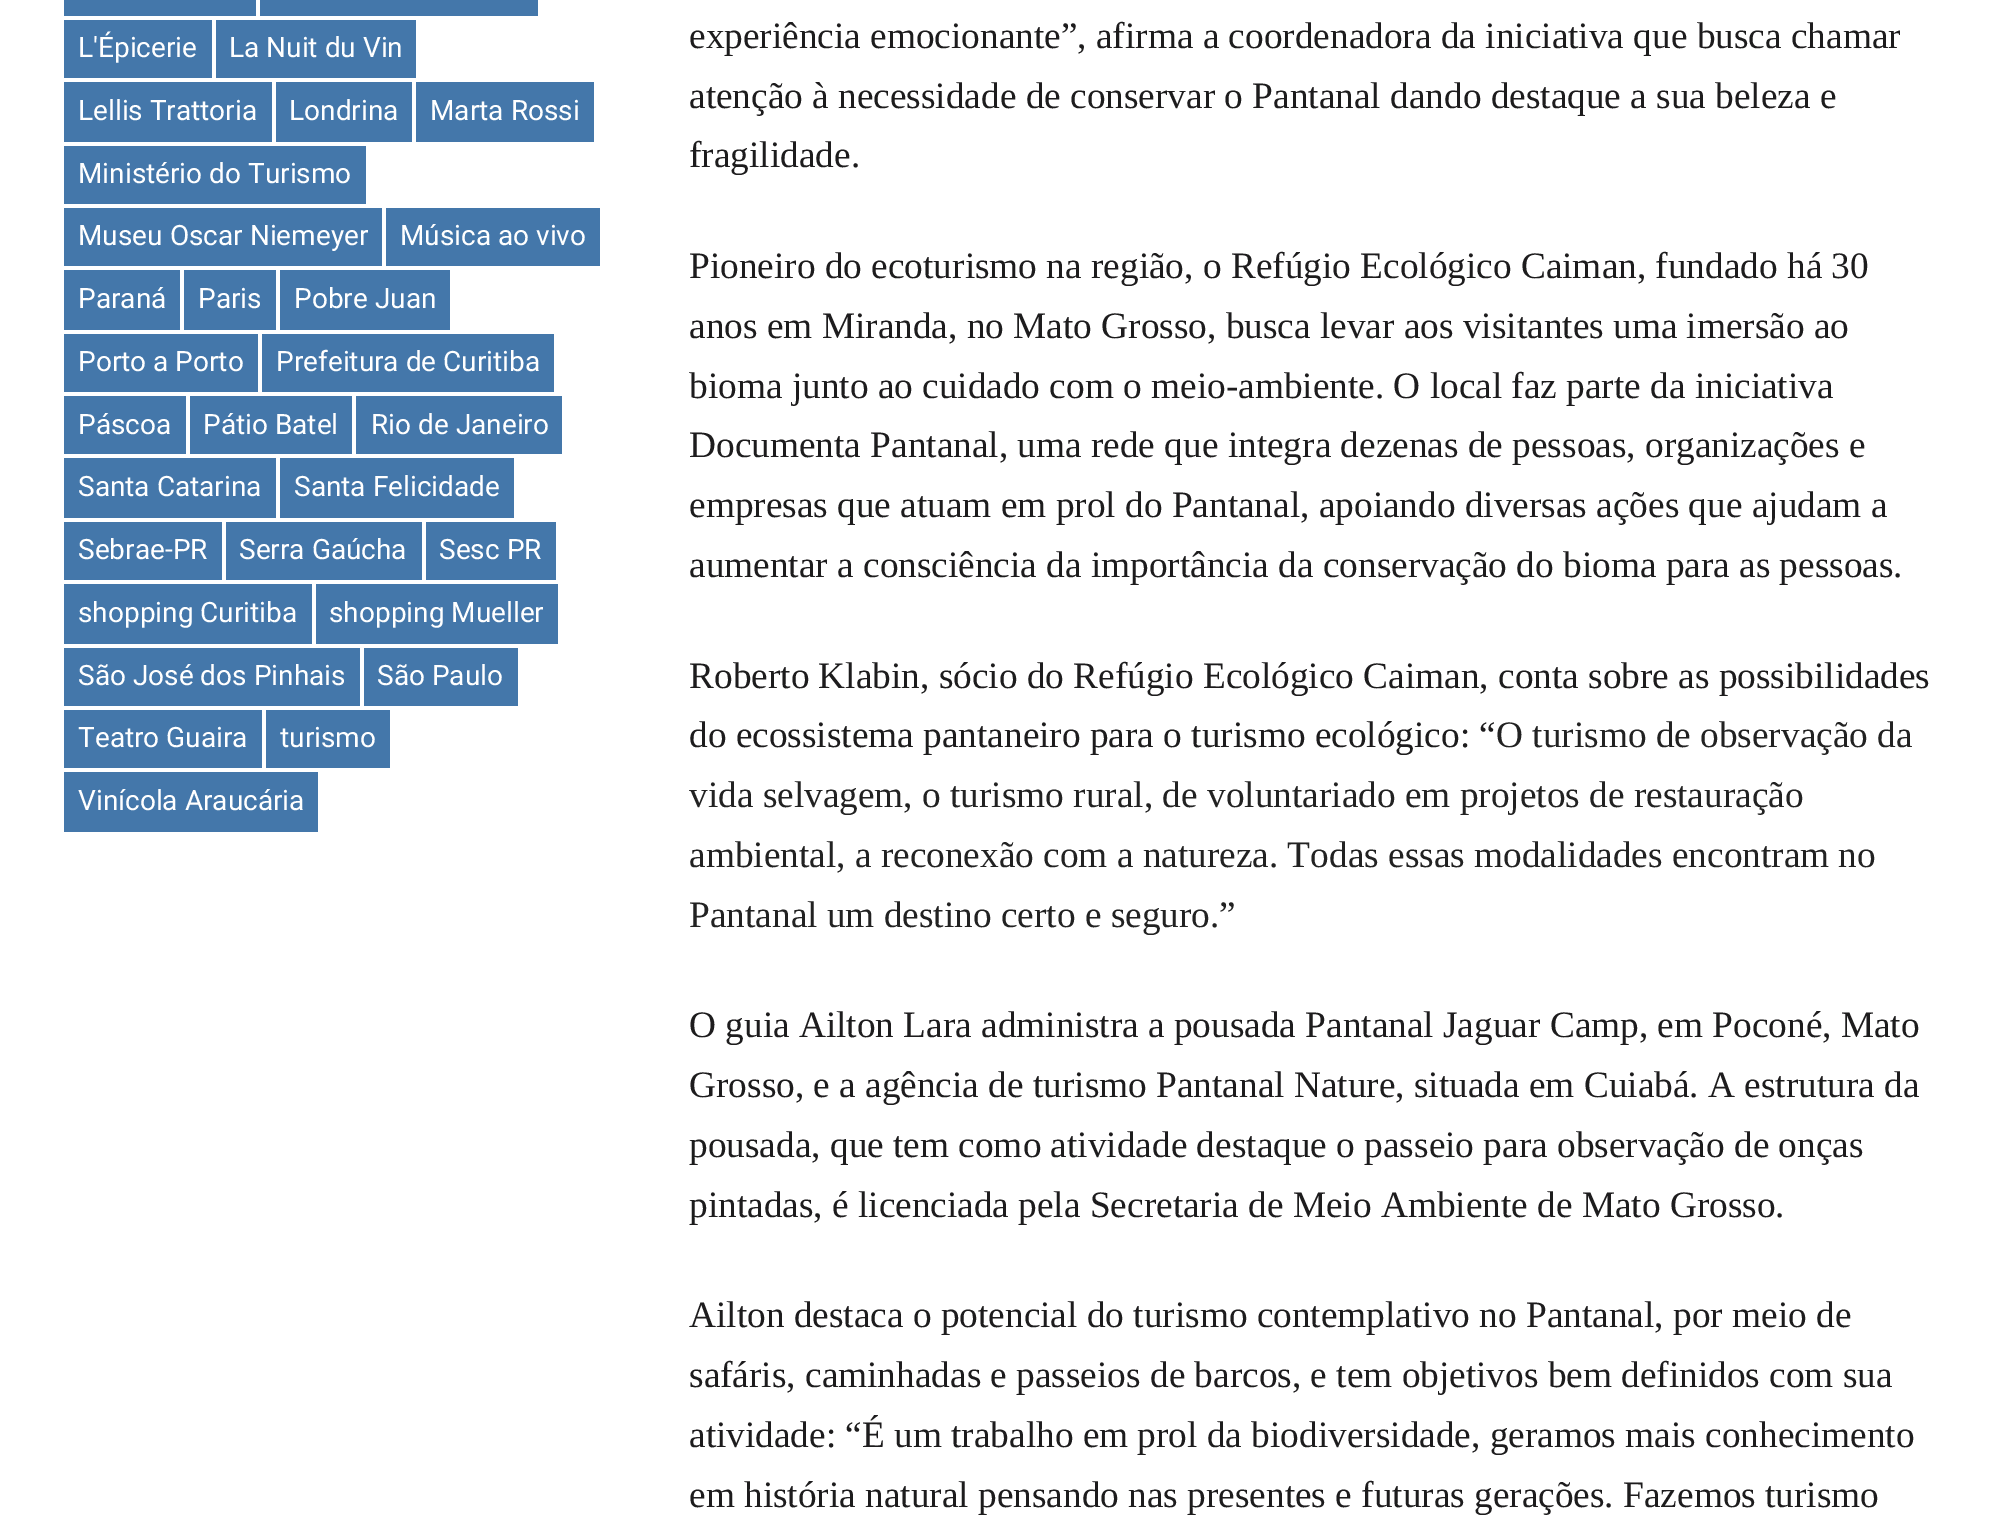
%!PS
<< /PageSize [1998 1534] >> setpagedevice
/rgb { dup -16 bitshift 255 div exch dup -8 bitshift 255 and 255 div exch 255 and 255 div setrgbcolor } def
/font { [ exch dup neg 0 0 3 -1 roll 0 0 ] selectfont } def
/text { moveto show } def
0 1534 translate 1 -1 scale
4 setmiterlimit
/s1 { /Roboto-Regular 28 font 16#FFFFFF rgb } def
/s2 { /LiberationSerif-Regular 37.3 font 16#1D1C1D rgb } def
/s3 { /LiberationSerif-Regular 37.3 font 16#222222 rgb } def
16#FFFFFF rgb
0 0 1998 1534 rectfill
16#4477AA rgb
64 0 192 16 rectfill
260 0 278 16 rectfill
64 20 148 58 rectfill
s1
(L'Épicerie) 78 57 text
16#4477AA rgb
216 20 200 58 rectfill
s1
(La Nuit du Vin) 229 57 text
16#4477AA rgb
64 82 208 60 rectfill
s1
(Lellis Trattoria) 78 120 text
16#4477AA rgb
276 82 136 60 rectfill
s1
(Londrina) 289 120 text
16#4477AA rgb
416 82 178 60 rectfill
s1
(Marta Rossi) 430 120 text
16#4477AA rgb
64 146 302 58 rectfill
s1
(Ministério do Turismo) 78 183 text
16#4477AA rgb
64 208 318 58 rectfill
s1
(Museu Oscar Niemeyer) 78 245 text
16#4477AA rgb
386 208 214 58 rectfill
s1
(Música ao vivo) 400 245 text
16#4477AA rgb
64 270 116 60 rectfill
s1
(Paraná) 78 308 text
16#4477AA rgb
184 270 92 60 rectfill
s1
(Paris) 198 308 text
16#4477AA rgb
280 270 170 60 rectfill
s1
(Pobre Juan) 294 308 text
16#4477AA rgb
64 334 194 58 rectfill
s1
(Porto a Porto) 78 371 text
16#4477AA rgb
262 334 292 58 rectfill
s1
(Prefeitura de Curitiba) 276 371 text
16#4477AA rgb
64 396 122 58 rectfill
s1
(Páscoa) 78 434 text
16#4477AA rgb
190 396 162 58 rectfill
s1
(Pátio Batel) 203 434 text
16#4477AA rgb
356 396 206 58 rectfill
s1
(Rio de Janeiro) 371 434 text
16#4477AA rgb
64 458 212 60 rectfill
s1
(Santa Catarina) 78 496 text
16#4477AA rgb
280 458 234 60 rectfill
s1
(Santa Felicidade) 294 496 text
16#4477AA rgb
64 522 158 58 rectfill
s1
(Sebrae-PR) 78 559 text
16#4477AA rgb
226 522 196 58 rectfill
s1
(Serra Gaúcha) 239 559 text
16#4477AA rgb
426 522 130 58 rectfill
s1
(Sesc PR) 439 559 text
16#4477AA rgb
64 584 248 60 rectfill
s1
(shopping Curitiba) 78 622 text
16#4477AA rgb
316 584 242 60 rectfill
s1
(shopping Mueller) 329 622 text
16#4477AA rgb
64 648 296 58 rectfill
s1
(São José dos Pinhais) 78 685 text
16#4477AA rgb
364 648 154 58 rectfill
s1
(São Paulo) 377 685 text
16#4477AA rgb
64 710 198 58 rectfill
s1
(Teatro Guaira) 78 747 text
16#4477AA rgb
266 710 124 58 rectfill
s1
(turismo) 280 747 text
16#4477AA rgb
64 772 254 60 rectfill
s1
(Vinícola Araucária) 78 810 text
s2
(experiência emocionante”, afirma a coordenadora da iniciativa que busca chamar) 689 48 text
(atenção à necessidade de conservar o Pantanal dando destaque a sua beleza e) 689 108 text
(fragilidade.) 689 167 text
(Pioneiro do ecoturismo na região, o Refúgio Ecológico Caiman, fundado há 30) 689 278 text
(anos em Miranda, no Mato Grosso, busca levar aos visitantes uma imersão ao) 689 338 text
(bioma junto ao cuidado com o meio-ambiente. O local faz parte da iniciativa) 689 398 text
(Documenta Pantanal, uma rede que integra dezenas de pessoas, organizações e) 689 457 text
(empresas que atuam em prol do Pantanal, apoiando diversas ações que ajudam a) 689 517 text
(aumentar a consciência da importância da conservação do bioma para as pessoas.) 689 577 text
(Roberto Klabin, sócio do Refúgio Ecológico Caiman, conta sobre as possibilidades) 689 688 text
(do ecossistema pantaneiro para o turismo ecológico: “) 689 747 text
s3
(O turismo de observação da) 1496 747 text
(vida selvagem, o turismo rural, de voluntariado em projetos de restauração) 689 807 text
(ambiental, a reconexão com a natureza. Todas essas modalidades encontram no) 689 867 text
(Pantanal um destino certo e seguro.”) 689 927 text
s2
(O guia Ailton Lara administra a pousada Pantanal Jaguar Camp, em Poconé, Mato) 689 1037 text
(Grosso, e a agência de turismo Pantanal Nature, situada em Cuiabá. A estrutura da) 689 1097 text
(pousada, que tem como atividade destaque o passeio para observação de onças) 689 1157 text
(pintadas, é licenciada pela Secretaria de Meio Ambiente de Mato Grosso.) 689 1217 text
(Ailton destaca o potencial do turismo contemplativo no Pantanal, por meio de) 689 1327 text
(safáris, caminhadas e passeios de barcos, e tem objetivos bem definidos com sua) 689 1387 text
(atividade: “É um trabalho em prol da biodiversidade, geramos mais conhecimento) 689 1447 text
(em história natural pensando nas presentes e futuras gerações. Fazemos turismo) 689 1507 text
showpage
